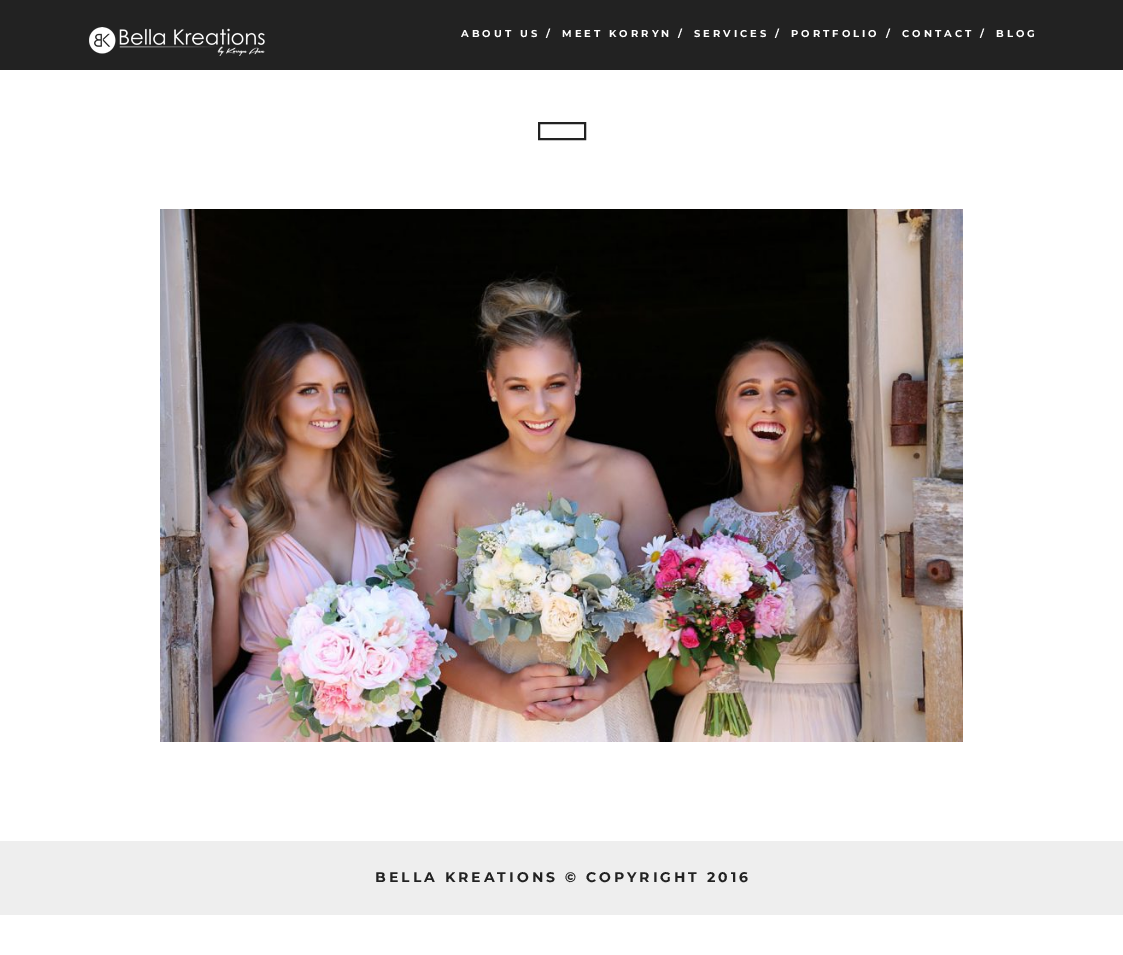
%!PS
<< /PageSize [1123 955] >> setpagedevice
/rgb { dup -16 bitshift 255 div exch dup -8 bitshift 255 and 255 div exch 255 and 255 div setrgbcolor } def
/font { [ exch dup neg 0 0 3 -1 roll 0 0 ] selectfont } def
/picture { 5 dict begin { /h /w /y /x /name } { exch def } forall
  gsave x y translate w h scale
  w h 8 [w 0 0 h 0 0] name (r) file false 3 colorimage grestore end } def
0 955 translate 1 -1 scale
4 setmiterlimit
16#FFFFFF rgb
0 0 1123 955 rectfill
16#222222 rgb
0 0 1123 70 rectfill
(pic1.raw) 89 27 176 29 picture
/Montserrat-Bold 10 font
16#FFFFFF rgb
461 37 moveto 3 0 (ABOUT US /) ashow
562 37 moveto 3 0 (MEET KORRYN /) ashow
694 37 moveto 3 0 (SERVICES /) ashow
791 37 moveto 3 0 (PORTFOLIO /) ashow
902 37 moveto 3 0 (CONTACT /) ashow
996 37 moveto 3 0 (BLOG) ashow
16#222222 rgb
2 setlinewidth
539 123 46 16 rectstroke
(pic2.raw) 160 209 803 533 picture
16#EEEEEE rgb
0 841 1123 74 rectfill
/Montserrat-Bold 14 font
16#222222 rgb
375 882 moveto 3 0 (BELLA KREATIONS © COPYRIGHT 2016) ashow
showpage
